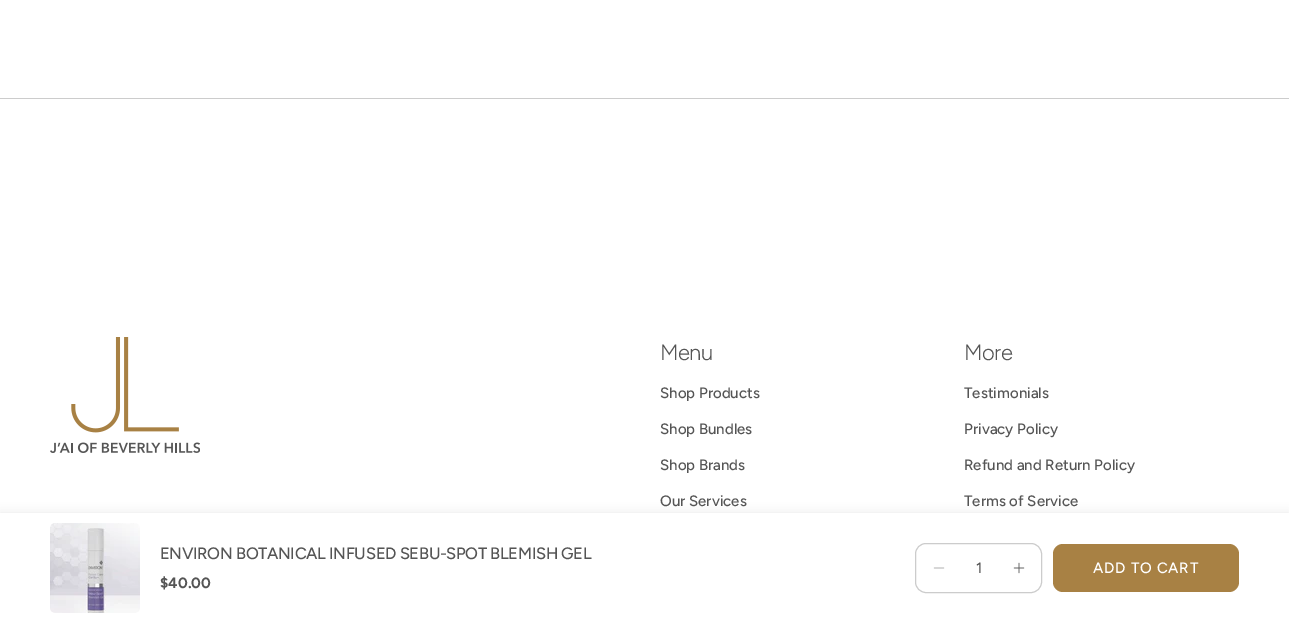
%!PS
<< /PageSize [1289 623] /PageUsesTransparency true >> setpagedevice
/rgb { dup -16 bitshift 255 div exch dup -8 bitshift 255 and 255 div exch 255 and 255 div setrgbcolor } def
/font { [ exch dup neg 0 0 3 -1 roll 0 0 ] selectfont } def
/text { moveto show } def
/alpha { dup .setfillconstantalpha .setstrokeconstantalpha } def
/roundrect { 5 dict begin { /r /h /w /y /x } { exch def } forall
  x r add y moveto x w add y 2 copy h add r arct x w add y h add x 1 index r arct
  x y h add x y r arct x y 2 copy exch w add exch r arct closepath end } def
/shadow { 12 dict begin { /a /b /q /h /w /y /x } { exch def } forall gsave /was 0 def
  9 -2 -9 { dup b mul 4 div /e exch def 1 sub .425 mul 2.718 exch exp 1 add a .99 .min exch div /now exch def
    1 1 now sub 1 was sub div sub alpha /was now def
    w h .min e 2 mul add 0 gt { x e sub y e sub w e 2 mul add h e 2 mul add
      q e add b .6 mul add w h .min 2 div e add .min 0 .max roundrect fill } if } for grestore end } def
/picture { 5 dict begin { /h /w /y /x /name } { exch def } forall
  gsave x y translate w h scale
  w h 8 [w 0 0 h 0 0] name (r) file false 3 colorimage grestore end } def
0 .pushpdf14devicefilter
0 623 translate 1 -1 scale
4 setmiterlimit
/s1 { /Figtree-Medium 15 font 16#555555 rgb } def
/s2 { /Figtree-Bold 15 font 16#555555 rgb } def
16#FFFFFF rgb
0 0 1289 623 rectfill
16#CCCCCC rgb
0 98 1289 1 rectfill
(pic1.raw) 50 337 150 116 picture
/Figtree-Light 22 font
16#555555 rgb
660 360 moveto -0.5 0 (Menu) ashow
s1
(Shop Products) 660 398 text
(Shop Bundles) 660 434 text
(Shop Brands) 660 470 text
(Our Services) 660 506 text
/Figtree-Light 22 font
964 360 moveto -0.5 0 (More) ashow
s1
(Testimonials) 964 398 text
(Privacy Policy) 964 434 text
(Refund and Return Policy) 964 470 text
(Terms of Service) 964 506 text
16#000000 rgb
0 513 1289 110 0 5 0.09 shadow
16#FFFFFF rgb
0 513 1289 110 rectfill
(pic2.raw) 50 523 90 90 picture
/Figtree-Medium 16.5 font
16#555555 rgb
160 559 moveto -0.35 0 (ENVIRON BOTANICAL INFUSED SEBU-SPOT BLEMISH GEL) ashow
s2
($40.00) 160 588 text
16#CCCCCC rgb
915.5 543.5 126 49 10.5 roundrect stroke
(pic3.raw) 933 567 12 2 picture
s1
(1) 976 573 text
(pic4.raw) 1013 562 12 12 picture
16#A88144 rgb
1053 544 186 48 10 roundrect fill
16#FFFFFF rgb
1093 573 moveto 0.75 0 (ADD TO CART) ashow
.poppdf14devicefilter showpage
